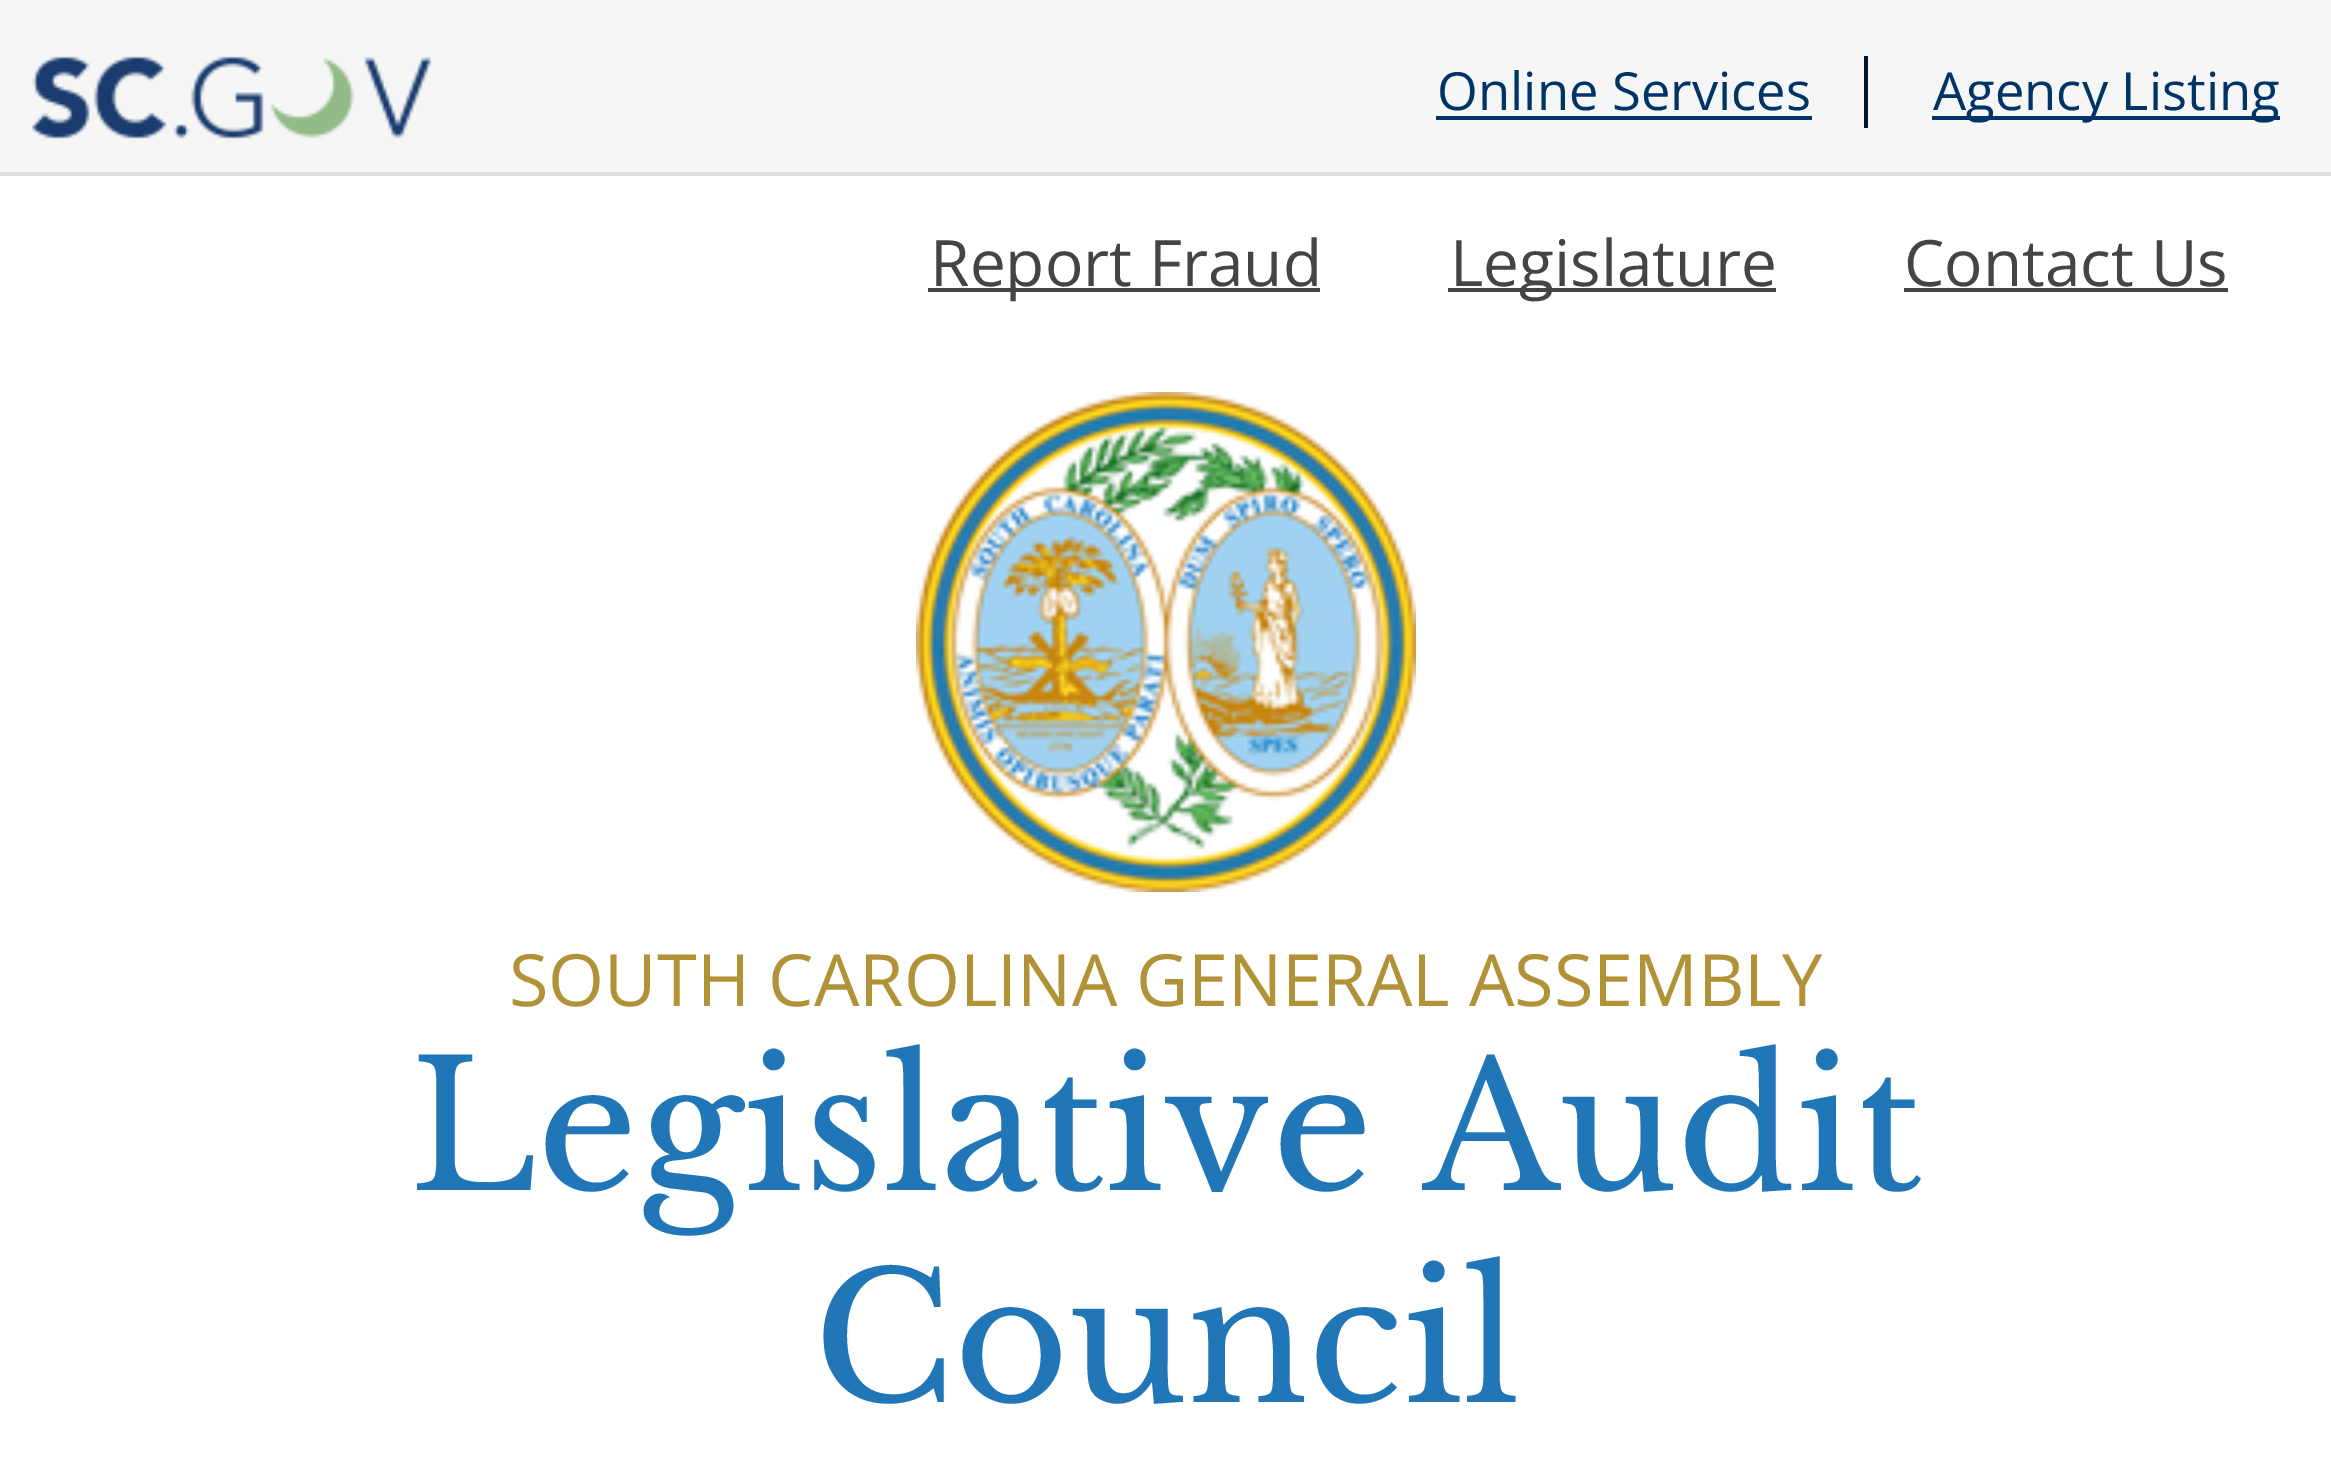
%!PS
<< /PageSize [2331 1470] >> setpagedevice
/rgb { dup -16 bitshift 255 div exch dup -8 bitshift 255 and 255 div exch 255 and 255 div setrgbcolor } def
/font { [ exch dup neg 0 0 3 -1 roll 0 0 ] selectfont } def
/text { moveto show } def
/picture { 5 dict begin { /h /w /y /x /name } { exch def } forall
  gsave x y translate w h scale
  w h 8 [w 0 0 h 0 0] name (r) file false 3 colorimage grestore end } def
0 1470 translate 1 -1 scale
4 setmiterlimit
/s1 { /OpenSans-Regular 52.5 font 16#003466 rgb } def
/s2 { /OpenSans-Regular 64 font 16#444444 rgb } def
/s3 { /OpenSans-Regular 72 font 16#B19236 rgb } def
/s4 { /LibreBaskerville-Regular 176 font 16#2076B7 rgb } def
16#FFFFFF rgb
0 0 2331 1470 rectfill
16#F6F6F6 rgb
0 0 2331 172 rectfill
16#DDDDDD rgb
0 172 2331 4 rectfill
(pic1.raw) 32 56 400 83 picture
s1
(Online Services) 1437 110 text
16#00172E rgb
1864 56 4 72 rectfill
16#003466 rgb
1436 116 376 4 rectfill
1932 116 348 4 rectfill
(Agency Listing) 1933 110 text
16#444444 rgb
928 288 392 4 rectfill
s2
(Report Fraud) 930 286 text
1448 288 328 4 rectfill
(Legislature) 1450 286 text
(Contact Us) 1904 286 text
1904 288 324 4 rectfill
(pic2.raw) 916 392 500 500 picture
s3
(SOUTH CAROLINA GENERAL ASSEMBLY) 509 1006 text
s4
(Legislative Audit) 409 1190 text
(Council) 813 1402 text
showpage
